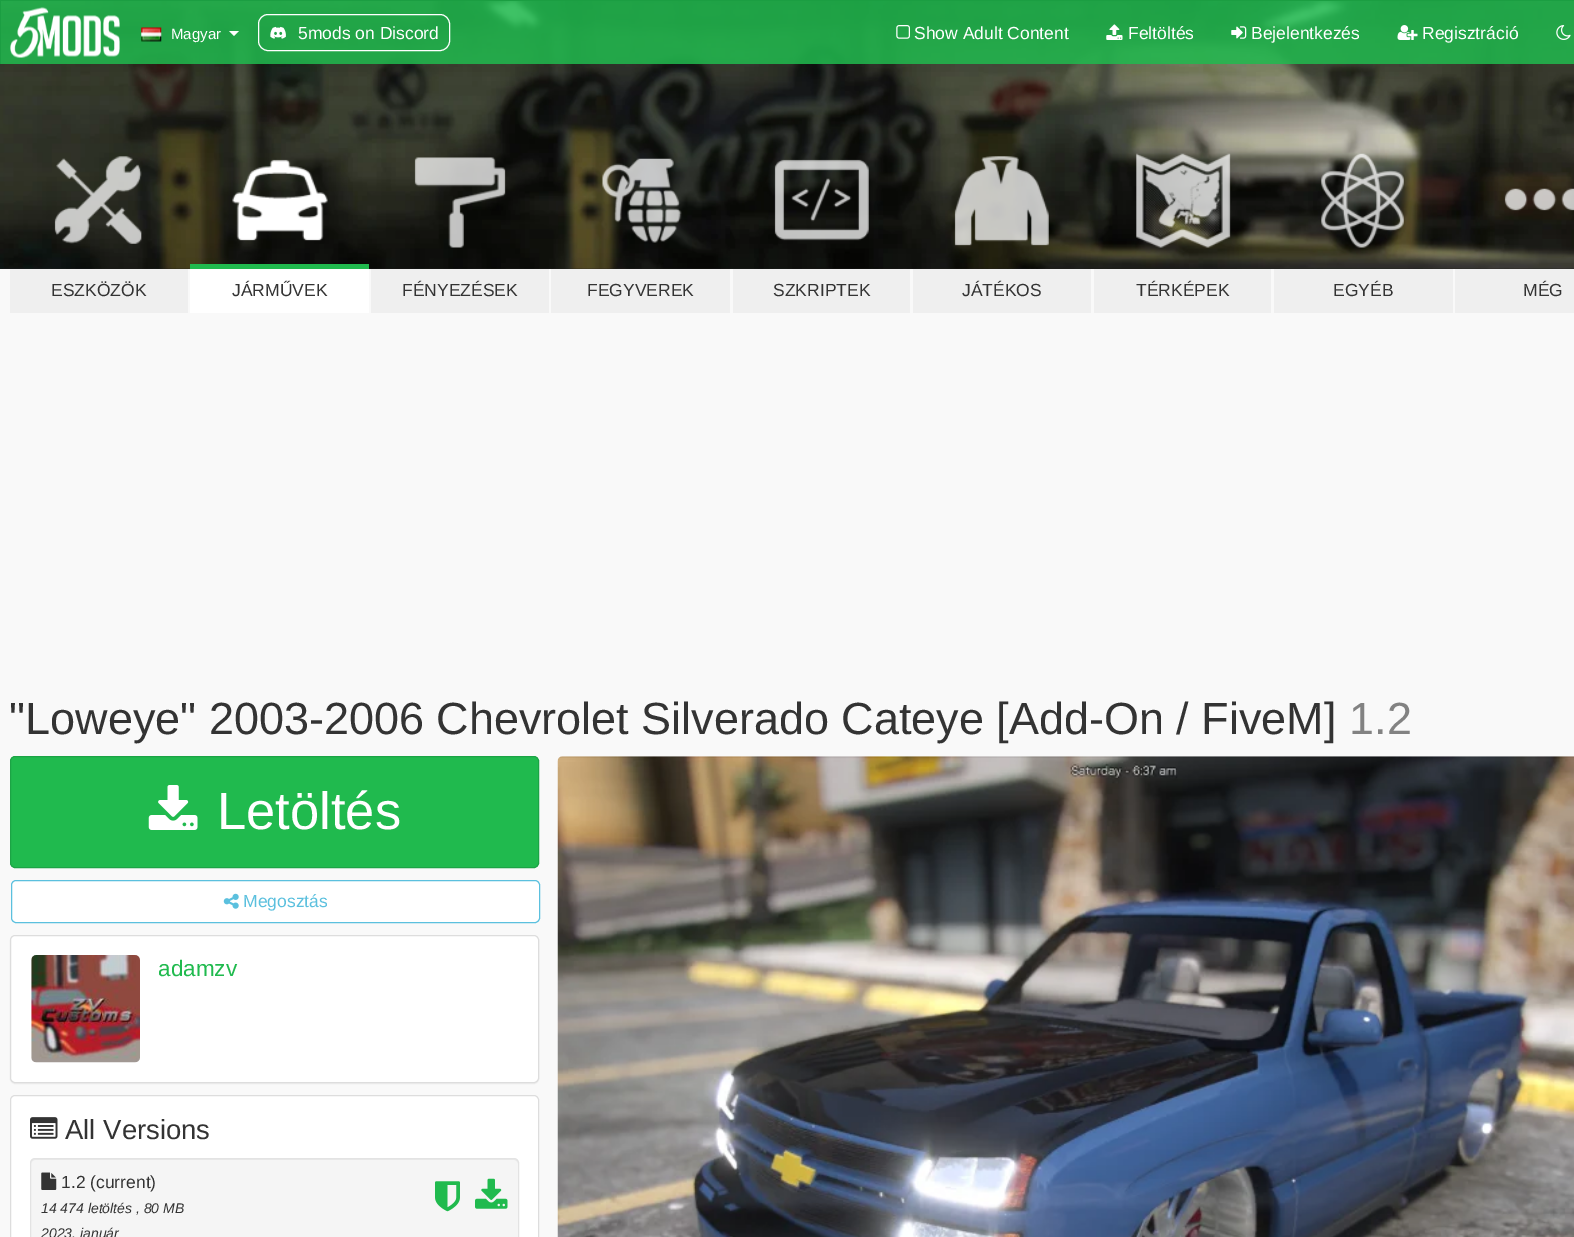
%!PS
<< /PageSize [1574 1237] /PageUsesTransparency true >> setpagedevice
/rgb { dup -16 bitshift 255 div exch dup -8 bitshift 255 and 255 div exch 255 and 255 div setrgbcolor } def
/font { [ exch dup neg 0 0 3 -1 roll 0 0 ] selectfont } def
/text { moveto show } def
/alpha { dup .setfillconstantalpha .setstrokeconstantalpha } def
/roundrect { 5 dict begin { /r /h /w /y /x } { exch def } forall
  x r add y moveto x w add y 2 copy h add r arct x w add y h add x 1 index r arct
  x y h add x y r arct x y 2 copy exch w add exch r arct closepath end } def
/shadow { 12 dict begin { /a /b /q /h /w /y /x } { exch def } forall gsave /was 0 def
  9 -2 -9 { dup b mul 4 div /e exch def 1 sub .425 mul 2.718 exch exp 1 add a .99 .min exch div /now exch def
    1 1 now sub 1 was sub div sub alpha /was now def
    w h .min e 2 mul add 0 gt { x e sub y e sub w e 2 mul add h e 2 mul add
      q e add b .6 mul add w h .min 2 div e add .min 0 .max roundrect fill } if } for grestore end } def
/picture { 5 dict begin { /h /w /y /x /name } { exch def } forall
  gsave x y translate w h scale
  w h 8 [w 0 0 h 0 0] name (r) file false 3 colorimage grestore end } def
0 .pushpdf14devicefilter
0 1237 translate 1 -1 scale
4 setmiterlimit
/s1 { /LiberationSans-Regular 15 font 16#FFFFFF rgb } def
/s2 { /LiberationSans-Regular 17.5 font 16#FFFFFF rgb } def
/s3 { /LiberationSans-Regular 17.5 font 16#333333 rgb } def
/s4 { /LiberationSans-Regular 45 font 16#333333 rgb } def
/s5 { /LiberationSans-Regular 45 font 16#828282 rgb } def
/s6 { /LiberationSans-Regular 52.5 font 16#FFFFFF rgb } def
/s7 { /LiberationSans-Regular 17.5 font 16#5BC0DE rgb } def
/s8 { /LiberationSans-Regular 22.5 font 16#20BA4E rgb } def
/s9 { /LiberationSans-Regular 27.5 font 16#333333 rgb } def
/s10 { /LiberationSans-Italic 14 font 16#333333 rgb } def
16#F9F9F9 rgb
0 0 1574 1237 rectfill
(pic9.raw) 0 1 1574 268 picture
0.85 alpha
16#20BA4E rgb
1 1 1573 63 rectfill
1 alpha
16#1B9E42 rgb
0 0 1574 1 rectfill
0 0 1 64 rectfill
(pic1.raw) 10 7 110 51 picture
(pic2.raw) 141 27 21 15 picture
s1
(Magyar) 171 39 text
229 31 moveto 239 31 lineto 234 36 lineto closepath fill
258.5 14.5 191 36 9.5 roundrect stroke
(pic3.raw) 270 26 16 13 picture
s2
(5mods on Discord) 298 39 text
(pic4.raw) 896 25 14 14 picture
(Show Adult Content) 914 39 text
(pic5.raw) 1106 24 17 16 picture
(Feltöltés) 1128 39 text
(pic6.raw) 1231 26 16 13 picture
(Bejelentkezés) 1251 39 text
(pic7.raw) 1397 25 21 15 picture
(Regisztráció) 1422 39 text
(pic8.raw) 1556 25 15 15 picture
(pic10.raw) 54 156 88 88 picture
16#EFEFEF rgb
10 269 178 44 rectfill
s3
(ESZKÖZÖK) 51 296 text
(pic11.raw) 232 159 96 82 picture
16#20BA4E rgb
190 264 179 5 rectfill
16#FFFFFF rgb
190 269 179 44 rectfill
s3
(JÁRMŰVEK) 232 296 text
(pic12.raw) 414 157 92 91 picture
16#EFEFEF rgb
371 269 178 44 rectfill
s3
(FÉNYEZÉSEK) 402 296 text
(pic13.raw) 602 158 80 85 picture
16#EFEFEF rgb
551 269 179 44 rectfill
s3
(FEGYVEREK) 587 296 text
(pic14.raw) 774 159 95 82 picture
16#EFEFEF rgb
733 269 177 44 rectfill
s3
(SZKRIPTEK) 773 296 text
(pic15.raw) 954 156 95 90 picture
16#EFEFEF rgb
913 269 178 44 rectfill
s3
(JÁTÉKOS) 962 296 text
(pic16.raw) 1136 153 95 95 picture
16#EFEFEF rgb
1094 269 177 44 rectfill
s3
(TÉRKÉPEK) 1136 296 text
(pic17.raw) 1321 153 83 95 picture
16#EFEFEF rgb
1274 269 179 44 rectfill
s3
(EGYÉB) 1333 296 text
(pic18.raw) 1504 188 70 23 picture
16#EFEFEF rgb
1455 269 119 44 rectfill
s3
(MÉG) 1523 296 text
s4
("Loweye" 2003-2006 Chevrolet Silverado Cateye [Add-On / FiveM]) 9 734 text
s5
(1.2) 1349 734 text
16#20BA4E rgb
10.5 756.5 528 111 4.5 roundrect gsave fill grestore
16#1CA445 rgb
stroke
(pic19.raw) 148 785 50 45 picture
s6
(Letöltés) 217 829 text
11.5 880.5 528 42 4.5 roundrect gsave fill grestore
16#5BC0DE rgb
stroke
(pic20.raw) 223 893 16 16 picture
s7
(Megosztás) 243 907 text
16#000000 rgb
10 936 529 148 5 0.5 0.05 shadow
16#FFFFFF rgb
10.5 935.5 528 147 4.5 roundrect gsave fill grestore
16#DDDDDD rgb
stroke
(pic21.raw) 31 955 109 108 picture
s8
(adamzv) 158 976 text
16#FFFFFF rgb
10.5 1095.5 528 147 4.5 roundrect gsave fill grestore
16#DDDDDD rgb
stroke
(pic22.raw) 30 1117 28 22 picture
s9
(All Versions) 65 1139 text
16#F5F5F5 rgb
30 1158 489 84 5 roundrect fill
16#E9E9E9 rgb
35 1160 moveto 514 1160 lineto 516 1160 518 1162 518 1164 curveto 518 1161 517 1159 514 1159 curveto 35 1159 lineto 32 1159 31 1161 31 1164 curveto 31 1162 33 1160 35 1160 curveto closepath fill
16#E3E3E3 rgb
30.5 1158.5 488 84 4.5 roundrect stroke
(pic23.raw) 41 1172 16 18 picture
s3
(1.2 \(current\)) 61 1188 text
s10
(14 474 letöltés , 80 MB) 41 1213 text
(2023. január) 41 1238 text
(pic24.raw) 435 1181 25 31 picture
(pic25.raw) 475 1178 33 31 picture
(pic26.raw) 557 756 1017 481 picture
.poppdf14devicefilter showpage
